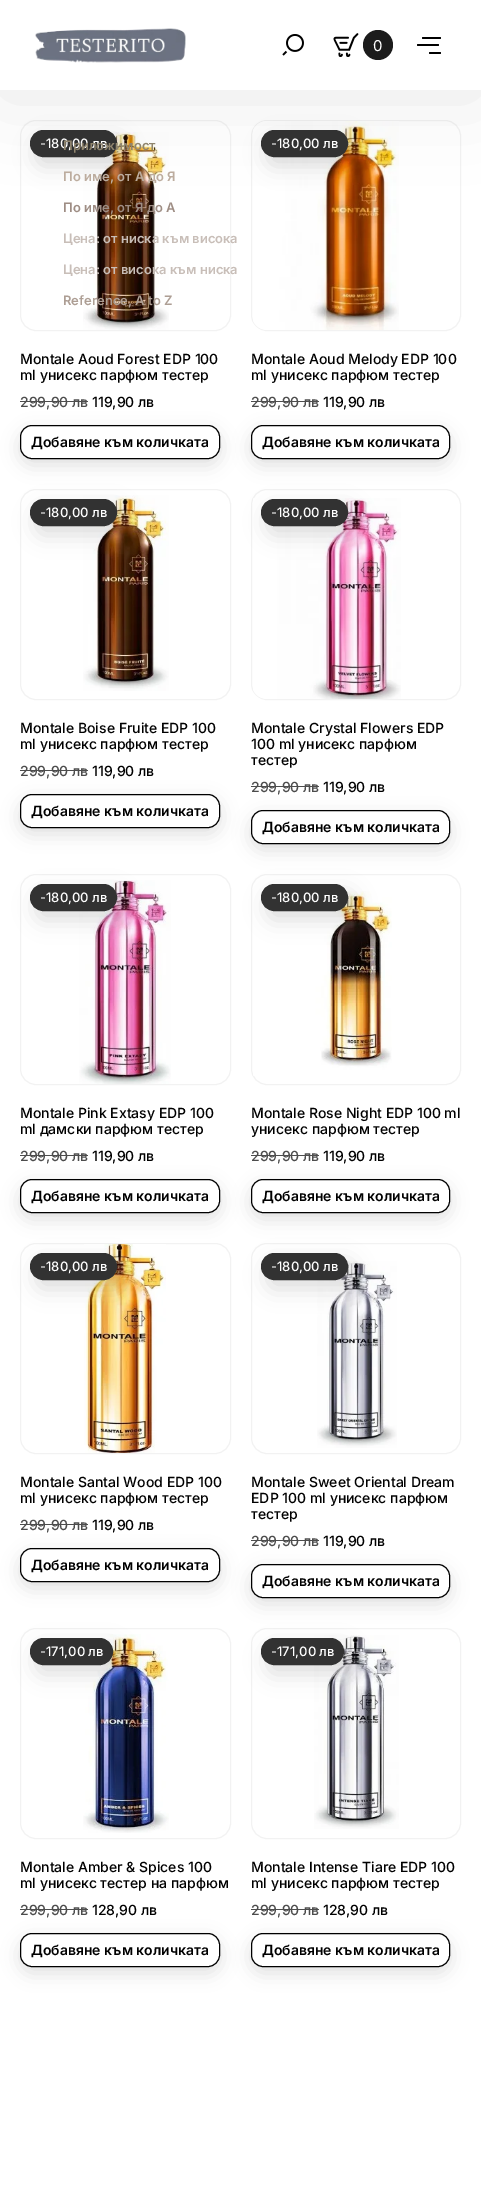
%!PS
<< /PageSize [481 2207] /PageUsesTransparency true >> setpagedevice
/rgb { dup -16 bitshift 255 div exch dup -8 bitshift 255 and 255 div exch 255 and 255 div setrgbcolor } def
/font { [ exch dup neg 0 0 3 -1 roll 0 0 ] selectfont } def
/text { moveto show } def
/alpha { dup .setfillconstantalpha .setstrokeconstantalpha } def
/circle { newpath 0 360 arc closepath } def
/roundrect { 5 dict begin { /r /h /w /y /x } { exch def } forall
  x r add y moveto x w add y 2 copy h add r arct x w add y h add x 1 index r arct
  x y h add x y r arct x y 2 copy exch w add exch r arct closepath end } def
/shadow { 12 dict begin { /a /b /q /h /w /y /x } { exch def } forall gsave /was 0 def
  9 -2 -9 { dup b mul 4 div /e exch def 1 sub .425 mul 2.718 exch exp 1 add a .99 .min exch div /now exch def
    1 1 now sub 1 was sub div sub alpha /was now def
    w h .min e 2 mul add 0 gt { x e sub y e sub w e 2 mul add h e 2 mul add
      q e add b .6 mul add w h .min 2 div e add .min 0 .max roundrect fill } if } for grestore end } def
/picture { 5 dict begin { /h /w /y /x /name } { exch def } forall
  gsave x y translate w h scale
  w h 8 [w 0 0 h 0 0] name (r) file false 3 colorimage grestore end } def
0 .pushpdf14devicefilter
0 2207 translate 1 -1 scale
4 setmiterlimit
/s1 { /Inter-Regular 15 font 16#FFFFFF rgb } def
/s2 { /Inter-Medium 13 font 16#FFFFFF rgb } def
/s3 { /Inter-Medium 14 font 16#000000 rgb } def
/s4 { /Inter-Medium 14 font 16#4C4C4C rgb } def
/s5 { /Inter-SemiBold 14 font 16#000000 rgb } def
/s6 { /Inter-SemiBold 13 font 16#90856E rgb } def
/s7 { /Inter-SemiBold 13 font 16#BCAC9E rgb } def
/s8 { /Inter-SemiBold 13 font 16#9E8D84 rgb } def
/s9 { /Inter-SemiBold 13 font 16#C8BEB8 rgb } def
/s10 { /Inter-SemiBold 13 font 16#AD9E94 rgb } def
16#FFFFFF rgb
0 0 481 2207 rectfill
16#F2F2F2 rgb
20.5 120.5 210 210 15.5 roundrect stroke
(pic4.raw) 83 132 86 198 picture
16#000000 rgb
36 139 87 27 13.5 11 0.14 shadow
16#323232 rgb
30.5 130.5 86 26 13 roundrect gsave fill grestore
stroke
16#F2F2F2 rgb
251.5 120.5 209 210 15.5 roundrect stroke
(pic5.raw) 253 121 146 209 picture
16#000000 rgb
267 139 87 27 13.5 11 0.14 shadow
16#323232 rgb
261.5 130.5 86 26 13 roundrect gsave fill grestore
stroke
16#000000 rgb
0 6 481 90 0 40 0.09 shadow
16#FFFFFF rgb
0 0 481 90 rectfill
(pic1.raw) 35 28 151 35 picture
(pic2.raw) 282 34 22 22 picture
(pic3.raw) 333 33 26 24 picture
16#1C1C1C rgb
378 45 15 circle fill
s1
(0) 373 51 text
16#000000 rgb
422 37 19 2 1 roundrect fill
417 44 22 2 1 roundrect fill
429 52 12 2 1 roundrect fill
s2
(-180,00 лв) 40 148 text
s3
(Montale Aoud Forest EDP 100) 20 364 text
(ml унисекс парфюм тестер) 20 380 text
20 431 200 34 12 9 0.12 shadow
s4
(299,90 лв) 20 407 text
16#4D4D4D rgb
20 401 68 1 rectfill
s3
(119,90 лв) 92 407 text
16#FFFFFF rgb
20.5 425.5 199 33 11.5 roundrect gsave fill grestore
16#000000 rgb
stroke
s5
(Добавяне към количката) 31 447 text
s2
(-180,00 лв) 271 148 text
s3
(Montale Aoud Melody EDP 100) 251 364 text
(ml унисекс парфюм тестер) 251 380 text
251 431 199 34 12 9 0.12 shadow
s4
(299,90 лв) 251 407 text
16#4D4D4D rgb
251 401 68 1 rectfill
s3
(119,90 лв) 323 407 text
16#FFFFFF rgb
251.5 425.5 198 33 11.5 roundrect gsave fill grestore
16#000000 rgb
stroke
s5
(Добавяне към количката) 262 447 text
16#F2F2F2 rgb
20.5 489.5 210 210 15.5 roundrect stroke
(pic6.raw) 83 495 86 196 picture
16#000000 rgb
36 508 87 27 13.5 11 0.14 shadow
16#323232 rgb
30.5 499.5 86 26 13 roundrect gsave fill grestore
stroke
s2
(-180,00 лв) 40 517 text
s3
(Montale Boise Fruite EDP 100) 20 733 text
(ml унисекс парфюм тестер) 20 749 text
20 800 200 34 12 9 0.12 shadow
s4
(299,90 лв) 20 776 text
16#4D4D4D rgb
20 770 68 1 rectfill
s3
(119,90 лв) 92 776 text
16#FFFFFF rgb
20.5 794.5 199 33 11.5 roundrect gsave fill grestore
16#000000 rgb
stroke
s5
(Добавяне към количката) 31 816 text
16#F2F2F2 rgb
251.5 489.5 209 210 15.5 roundrect stroke
(pic7.raw) 253 498 148 201 picture
16#000000 rgb
267 508 87 27 13.5 11 0.14 shadow
16#323232 rgb
261.5 499.5 86 26 13 roundrect gsave fill grestore
stroke
s2
(-180,00 лв) 271 517 text
s3
(Montale Crystal Flowers EDP) 251 733 text
(100 ml унисекс парфюм) 251 749 text
(тестер) 251 765 text
251 816 199 34 12 9 0.12 shadow
s4
(299,90 лв) 251 792 text
16#4D4D4D rgb
251 786 68 1 rectfill
s3
(119,90 лв) 323 792 text
16#FFFFFF rgb
251.5 810.5 198 33 11.5 roundrect gsave fill grestore
16#000000 rgb
stroke
s5
(Добавяне към количката) 262 832 text
16#F2F2F2 rgb
20.5 874.5 210 210 15.5 roundrect stroke
(pic8.raw) 79 880 92 204 picture
16#000000 rgb
36 893 87 27 13.5 11 0.14 shadow
16#323232 rgb
30.5 884.5 86 26 13 roundrect gsave fill grestore
stroke
s2
(-180,00 лв) 40 902 text
s3
(Montale Pink Extasy EDP 100) 20 1118 text
(ml дамски парфюм тестер) 20 1134 text
20 1185 200 34 12 9 0.12 shadow
s4
(299,90 лв) 20 1161 text
16#4D4D4D rgb
20 1155 68 1 rectfill
s3
(119,90 лв) 92 1161 text
16#FFFFFF rgb
20.5 1179.5 199 33 11.5 roundrect gsave fill grestore
16#000000 rgb
stroke
s5
(Добавяне към количката) 31 1201 text
16#F2F2F2 rgb
251.5 874.5 209 210 15.5 roundrect stroke
(pic9.raw) 253 891 139 185 picture
16#000000 rgb
267 893 87 27 13.5 11 0.14 shadow
16#323232 rgb
261.5 884.5 86 26 13 roundrect gsave fill grestore
stroke
s2
(-180,00 лв) 271 902 text
s3
(Montale Rose Night EDP 100 ml) 251 1118 text
(унисекс парфюм тестер) 251 1134 text
251 1185 199 34 12 9 0.12 shadow
s4
(299,90 лв) 251 1161 text
16#4D4D4D rgb
251 1155 68 1 rectfill
s3
(119,90 лв) 323 1161 text
16#FFFFFF rgb
251.5 1179.5 198 33 11.5 roundrect gsave fill grestore
16#000000 rgb
stroke
s5
(Добавяне към количката) 262 1201 text
16#F2F2F2 rgb
20.5 1243.5 210 210 15.5 roundrect stroke
(pic10.raw) 84 1244 82 209 picture
16#000000 rgb
36 1262 87 27 13.5 11 0.14 shadow
16#323232 rgb
30.5 1253.5 86 26 13 roundrect gsave fill grestore
stroke
s2
(-180,00 лв) 40 1271 text
s3
(Montale Santal Wood EDP 100) 20 1487 text
(ml унисекс парфюм тестер) 20 1503 text
20 1554 200 34 12 9 0.12 shadow
s4
(299,90 лв) 20 1530 text
16#4D4D4D rgb
20 1524 68 1 rectfill
s3
(119,90 лв) 92 1530 text
16#FFFFFF rgb
20.5 1548.5 199 33 11.5 roundrect gsave fill grestore
16#000000 rgb
stroke
s5
(Добавяне към количката) 31 1570 text
16#F2F2F2 rgb
251.5 1243.5 209 210 15.5 roundrect stroke
(pic11.raw) 317 1261 80 187 picture
16#000000 rgb
267 1262 87 27 13.5 11 0.14 shadow
16#323232 rgb
261.5 1253.5 86 26 13 roundrect gsave fill grestore
stroke
s2
(-180,00 лв) 271 1271 text
s3
(Montale Sweet Oriental Dream) 251 1487 text
(EDP 100 ml унисекс парфюм) 251 1503 text
(тестер) 251 1519 text
251 1570 199 34 12 9 0.12 shadow
s4
(299,90 лв) 251 1546 text
16#4D4D4D rgb
251 1540 68 1 rectfill
s3
(119,90 лв) 323 1546 text
16#FFFFFF rgb
251.5 1564.5 198 33 11.5 roundrect gsave fill grestore
16#000000 rgb
stroke
s5
(Добавяне към количката) 262 1586 text
16#F2F2F2 rgb
20.5 1628.5 210 210 15.5 roundrect stroke
(pic12.raw) 83 1634 86 199 picture
16#000000 rgb
36 1647 83 27 13.5 11 0.14 shadow
16#323232 rgb
30.5 1638.5 82 26 13 roundrect gsave fill grestore
stroke
s2
(-171,00 лв) 40 1656 text
s3
(Montale Amber & Spices 100) 20 1872 text
(ml унисекс тестер на парфюм) 20 1888 text
20 1939 200 34 12 9 0.12 shadow
s4
(299,90 лв) 20 1915 text
16#4D4D4D rgb
20 1909 68 1 rectfill
s3
(128,90 лв) 92 1915 text
16#FFFFFF rgb
20.5 1933.5 199 33 11.5 roundrect gsave fill grestore
16#000000 rgb
stroke
s5
(Добавяне към количката) 31 1955 text
16#F2F2F2 rgb
251.5 1628.5 209 210 15.5 roundrect stroke
(pic13.raw) 314 1635 85 194 picture
16#000000 rgb
267 1647 83 27 13.5 11 0.14 shadow
16#323232 rgb
261.5 1638.5 82 26 13 roundrect gsave fill grestore
stroke
s2
(-171,00 лв) 271 1656 text
s3
(Montale Intense Tiare EDP 100) 251 1872 text
(ml унисекс парфюм тестер) 251 1888 text
251 1939 199 34 12 9 0.12 shadow
s4
(299,90 лв) 251 1915 text
16#4D4D4D rgb
251 1909 68 1 rectfill
s3
(128,90 лв) 323 1915 text
16#FFFFFF rgb
251.5 1933.5 198 33 11.5 roundrect gsave fill grestore
16#000000 rgb
stroke
s5
(Добавяне към количката) 262 1955 text
s6
(Приложимост) 63 150 text
s7
(По име, от А до Я) 63 181 text
s8
(По име, от Я до А) 63 212 text
s9
(Цена: от ниска към висока) 63 243 text
(Цена: от висока към ниска) 63 274 text
s10
(Reference, A to Z) 63 305 text
.poppdf14devicefilter showpage
